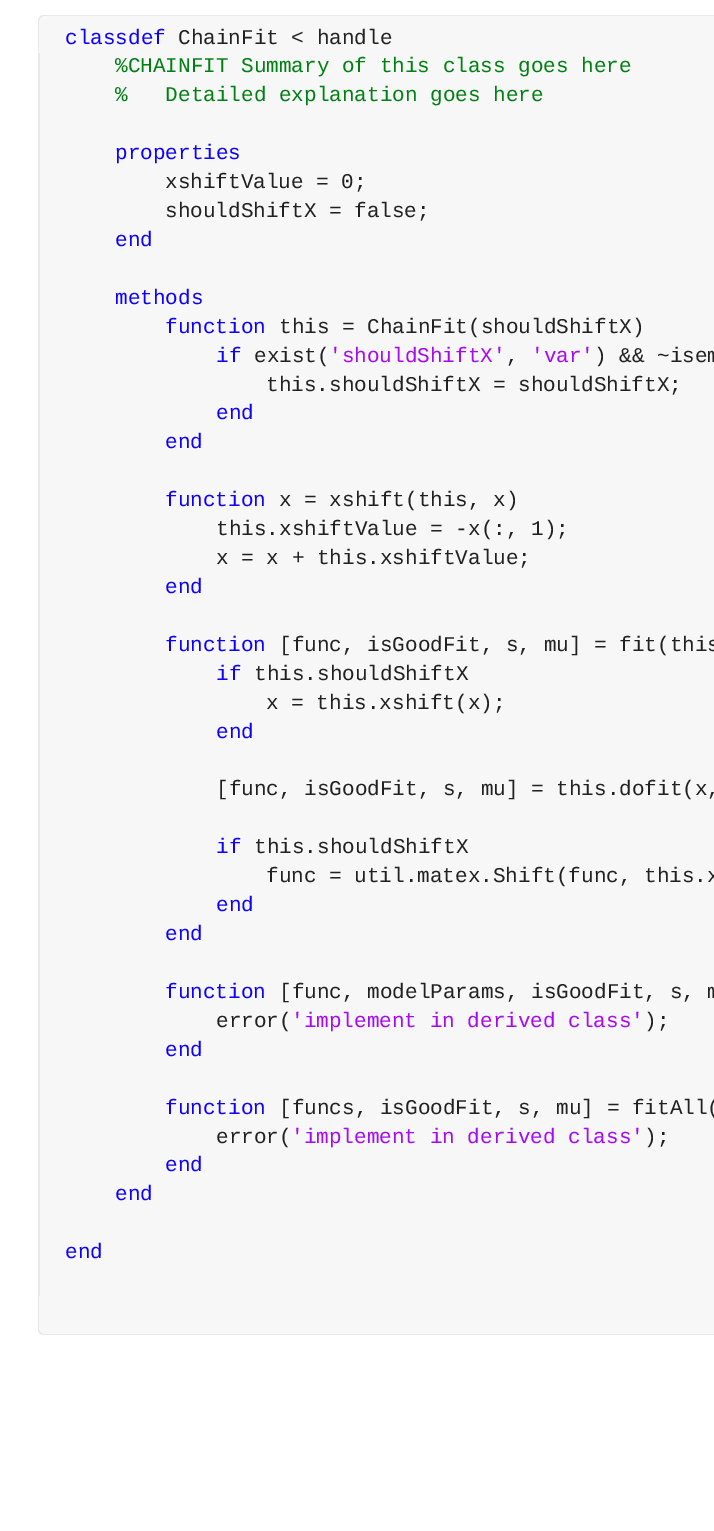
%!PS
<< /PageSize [714 1531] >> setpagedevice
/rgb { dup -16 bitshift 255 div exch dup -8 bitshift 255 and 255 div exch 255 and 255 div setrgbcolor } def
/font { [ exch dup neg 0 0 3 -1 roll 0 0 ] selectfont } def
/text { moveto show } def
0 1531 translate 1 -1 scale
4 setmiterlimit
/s1 { /LiberationMono-Regular 21 font 16#0E00FF rgb } def
/s2 { /LiberationMono-Regular 21 font 16#212121 rgb } def
/s3 { /LiberationMono-Regular 21 font 16#008013 rgb } def
/s4 { /LiberationMono-Regular 21 font 16#A709F5 rgb } def
16#FFFFFF rgb
0 0 714 1531 rectfill
16#F7F7F7 rgb
44 15 moveto 714 15 lineto 714 1335 lineto 44 1335 lineto 40.5 1335 38 1332.5 38 1329 curveto 38 21 lineto 38 17.5 40.5 15 44 15 curveto closepath fill
16#E9E9E9 rgb
44 15 moveto 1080 15 lineto 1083 15 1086 18 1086 21 curveto 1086 52 lineto 38 52 lineto 38 21 lineto 38 18 40 15 44 15 curveto closepath 44 16 moveto 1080 16 lineto 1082 16 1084 19 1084 21 curveto 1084 52 lineto 39 52 lineto 39 21 lineto 39 19 41 16 44 16 curveto closepath eofill
s1
(classdef) 65 44 text
s2
(ChainFit < handle) 178 44 text
16#E9E9E9 rgb
38 53 2 1243 rectfill
s3
(%CHAINFIT Summary of this class goes here) 115 72 text
(%   Detailed explanation goes here) 115 101 text
s1
(properties) 115 159 text
s2
(xshiftValue = 0;) 165 188 text
(shouldShiftX = false;) 165 217 text
s1
(end) 115 246 text
(methods) 115 304 text
(function) 165 333 text
s2
(this = ChainFit\(shouldShiftX\)) 279 333 text
s1
(if) 216 362 text
s2
(exist\() 254 362 text
s4
('shouldShiftX') 329 362 text
s2
(,) 506 362 text
s4
('var') 531 362 text
s2
(\) && ~isem) 594 362 text
(this.shouldShiftX = shouldShiftX;) 266 391 text
s1
(end) 216 419 text
(end) 165 448 text
(function) 165 506 text
s2
(x = xshift\(this, x\)) 279 506 text
(this.xshiftValue = -x\(:, 1\);) 216 535 text
(x = x + this.xshiftValue;) 216 564 text
s1
(end) 165 593 text
(function) 165 651 text
s2
([func, isGoodFit, s, mu] = fit\(this) 279 651 text
s1
(if) 216 680 text
s2
(this.shouldShiftX) 254 680 text
(x = this.xshift\(x\);) 266 709 text
s1
(end) 216 738 text
s2
([func, isGoodFit, s, mu] = this.dofit\(x,) 216 795 text
s1
(if) 216 853 text
s2
(this.shouldShiftX) 254 853 text
(func = util.matex.Shift\(func, this.x) 266 882 text
s1
(end) 216 911 text
(end) 165 940 text
(function) 165 998 text
s2
([func, modelParams, isGoodFit, s, m) 279 998 text
(error\() 216 1027 text
s4
('implement in derived class') 291 1027 text
s2
(\);) 644 1027 text
s1
(end) 165 1056 text
(function) 165 1114 text
s2
([funcs, isGoodFit, s, mu] = fitAll\() 279 1114 text
(error\() 216 1143 text
s4
('implement in derived class') 291 1143 text
s2
(\);) 644 1143 text
s1
(end) 165 1171 text
(end) 115 1200 text
(end) 65 1258 text
16#E9E9E9 rgb
38 1296 moveto 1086 1296 lineto 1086 1329 lineto 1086 1332 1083 1335 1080 1335 curveto 44 1335 lineto 40 1335 38 1332 38 1329 curveto closepath 39 1296 moveto 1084 1296 lineto 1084 1329 lineto 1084 1331 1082 1334 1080 1334 curveto 44 1334 lineto 41 1334 39 1331 39 1329 curveto closepath eofill
showpage
